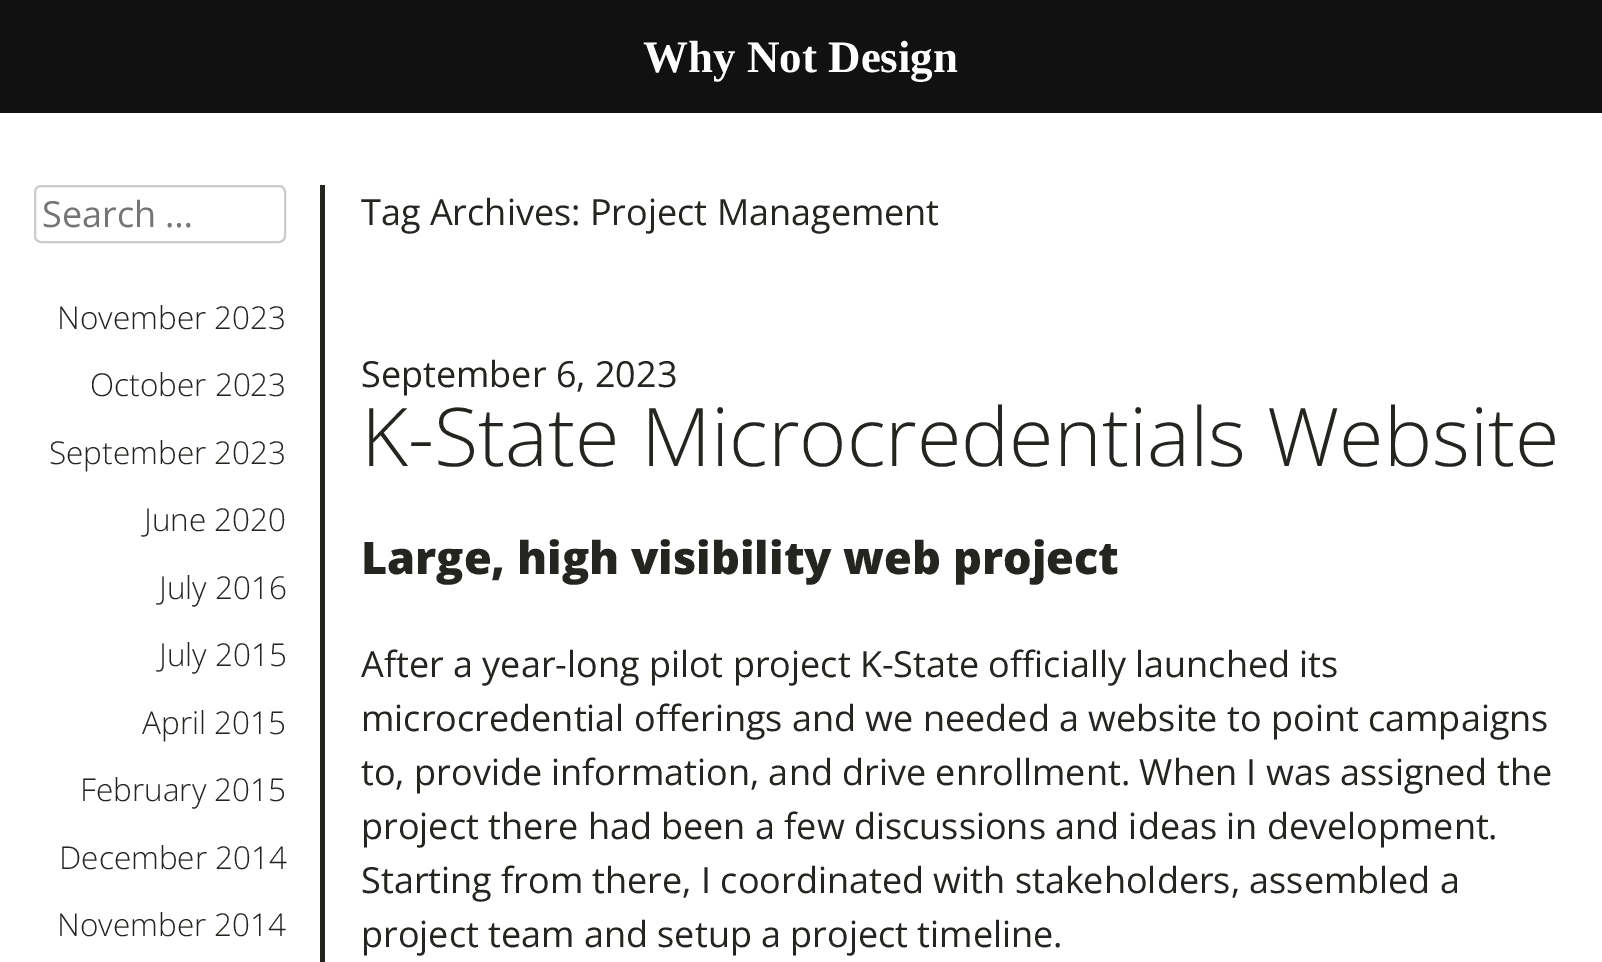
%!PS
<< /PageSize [1602 962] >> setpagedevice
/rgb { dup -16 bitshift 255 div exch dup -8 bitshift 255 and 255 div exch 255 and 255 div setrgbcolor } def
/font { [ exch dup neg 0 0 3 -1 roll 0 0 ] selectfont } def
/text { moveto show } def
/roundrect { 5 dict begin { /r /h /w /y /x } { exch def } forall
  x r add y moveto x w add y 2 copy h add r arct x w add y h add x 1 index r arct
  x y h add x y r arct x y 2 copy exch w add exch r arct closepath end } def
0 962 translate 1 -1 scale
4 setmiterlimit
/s1 { /LiberationSerif-Bold 45 font 16#FFFFFF rgb } def
/s2 { /OpenSans-Regular 36 font 16#757575 rgb } def
/s3 { /OpenSans-Light 31.5 font 16#242420 rgb } def
/s4 { /OpenSans-Regular 36 font 16#242420 rgb } def
/s5 { /OpenSans-Light 81 font 16#242420 rgb } def
/s6 { /OpenSans-ExtraBold 45 font 16#242420 rgb } def
16#FFFFFF rgb
0 0 1602 962 rectfill
16#111111 rgb
0 0 1602 113 rectfill
s1
(Why Not Design) 643 72 text
16#CCCCCC rgb
2 setlinewidth
35 186 250 56 6 roundrect stroke
s2
(Search …) 42 227 text
s3
(November 2023) 57 329 text
(October 2023) 90 396 text
(September 2023) 49 464 text
(June 2020) 144 531 text
(July 2016) 159 599 text
(July 2015) 159 666 text
(April 2015) 142 734 text
(February 2015) 80 801 text
(December 2014) 59 869 text
(November 2014) 57 936 text
320 185 5 777 rectfill
s4
(Tag Archives: Project Management) 361 225 text
(September 6, 2023) 361 387 text
s5
(K-State Microcredentials Website) 361 466 text
s6
(Large, high visibility web project) 361 574 text
s4
(After a year-long pilot project K-State officially launched its) 361 677 text
(microcredential offerings and we needed a website to point campaigns) 361 731 text
(to, provide information, and drive enrollment. When I was assigned the) 361 785 text
(project there had been a few discussions and ideas in development.) 361 839 text
(Starting from there, I coordinated with stakeholders, assembled a) 361 893 text
(project team and setup a project timeline.) 361 947 text
showpage
